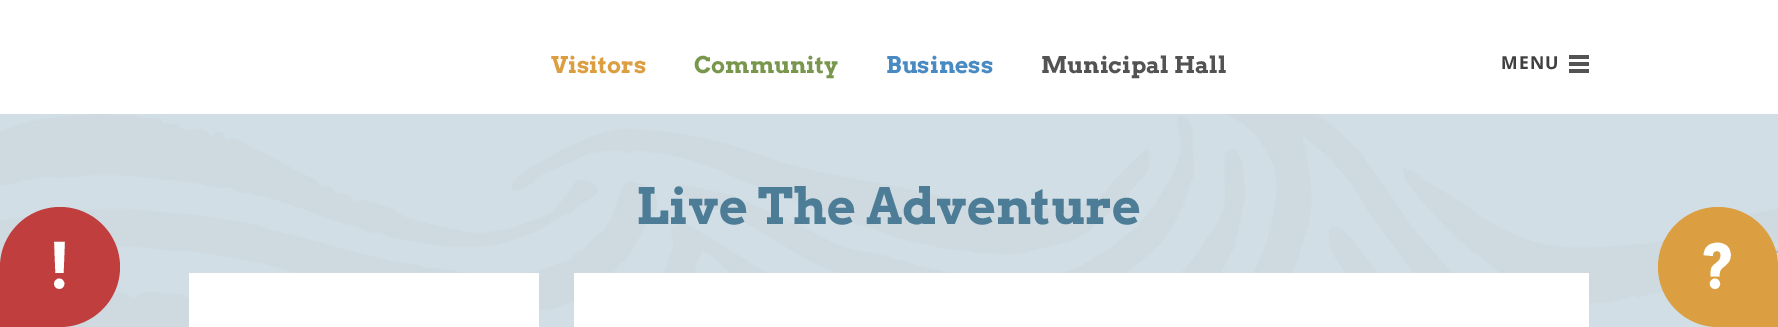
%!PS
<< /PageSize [1778 327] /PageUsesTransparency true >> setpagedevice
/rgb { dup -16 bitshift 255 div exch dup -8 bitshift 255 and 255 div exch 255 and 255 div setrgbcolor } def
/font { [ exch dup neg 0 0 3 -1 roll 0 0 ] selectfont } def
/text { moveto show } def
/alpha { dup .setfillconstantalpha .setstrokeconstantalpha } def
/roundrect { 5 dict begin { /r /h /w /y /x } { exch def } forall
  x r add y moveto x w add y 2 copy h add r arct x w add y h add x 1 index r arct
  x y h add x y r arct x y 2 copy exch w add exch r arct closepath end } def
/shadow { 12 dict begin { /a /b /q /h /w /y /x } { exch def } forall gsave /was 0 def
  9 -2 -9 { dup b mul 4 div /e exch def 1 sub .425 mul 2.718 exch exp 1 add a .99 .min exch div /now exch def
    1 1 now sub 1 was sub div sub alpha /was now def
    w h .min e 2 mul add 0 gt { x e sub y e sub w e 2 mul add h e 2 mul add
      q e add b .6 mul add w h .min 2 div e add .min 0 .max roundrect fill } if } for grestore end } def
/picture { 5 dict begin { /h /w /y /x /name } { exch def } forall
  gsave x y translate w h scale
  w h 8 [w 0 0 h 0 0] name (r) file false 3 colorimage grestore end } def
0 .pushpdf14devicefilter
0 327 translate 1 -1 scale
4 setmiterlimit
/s1 { /Arvo-Bold 23 font 16#DB9E41 rgb } def
/s2 { /Arvo-Bold 23 font 16#78964C rgb } def
/s3 { /Arvo-Bold 23 font 16#498AC3 rgb } def
/s4 { /Arvo-Bold 23 font 16#535353 rgb } def
/s5 { /Arvo-Bold 60 font 16#FFFFFF rgb } def
/s6 { /Arvo-Bold 50 font 16#4C7C96 rgb } def
16#FFFFFF rgb
0 0 1778 327 rectfill
s1
(Visitors) 551 73 text
s2
(Community) 694 73 text
s3
(Business) 886 73 text
s4
(Municipal Hall) 1041 73 text
/Khula-Bold 19 font
16#404040 rgb
1501 69 moveto 1 0 (MENU) ashow
16#535353 rgb
1569 55 20 4 rectfill
1569 62 20 4 rectfill
1569 69 20 4 rectfill
(pic1.raw) 0 114 1778 213 picture
16#C13E3E rgb
60 207 moveto 93 207 120 234 120 267 curveto 120 300 93 327 60 327 curveto 0 327 lineto 0 267 lineto 0 234 27 207 60 207 curveto closepath fill
s5
(!) 50 288 text
s6
(Live The Adventure) 636 224 text
gsave
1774 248 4 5 rectclip
16#808080 rgb
1708 253 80 60 2 2.5 1 shadow
grestore
16#DB9E41 rgb
1718 207 moveto 1751 207 1778 234 1778 267 curveto 1778 327 lineto 1718 327 lineto 1685 327 1658 300 1658 267 curveto 1658 234 1685 207 1718 207 curveto closepath fill
s5
(?) 1701 288 text
189 273 350 54 rectfill
574 273 1015 54 rectfill
.poppdf14devicefilter showpage
